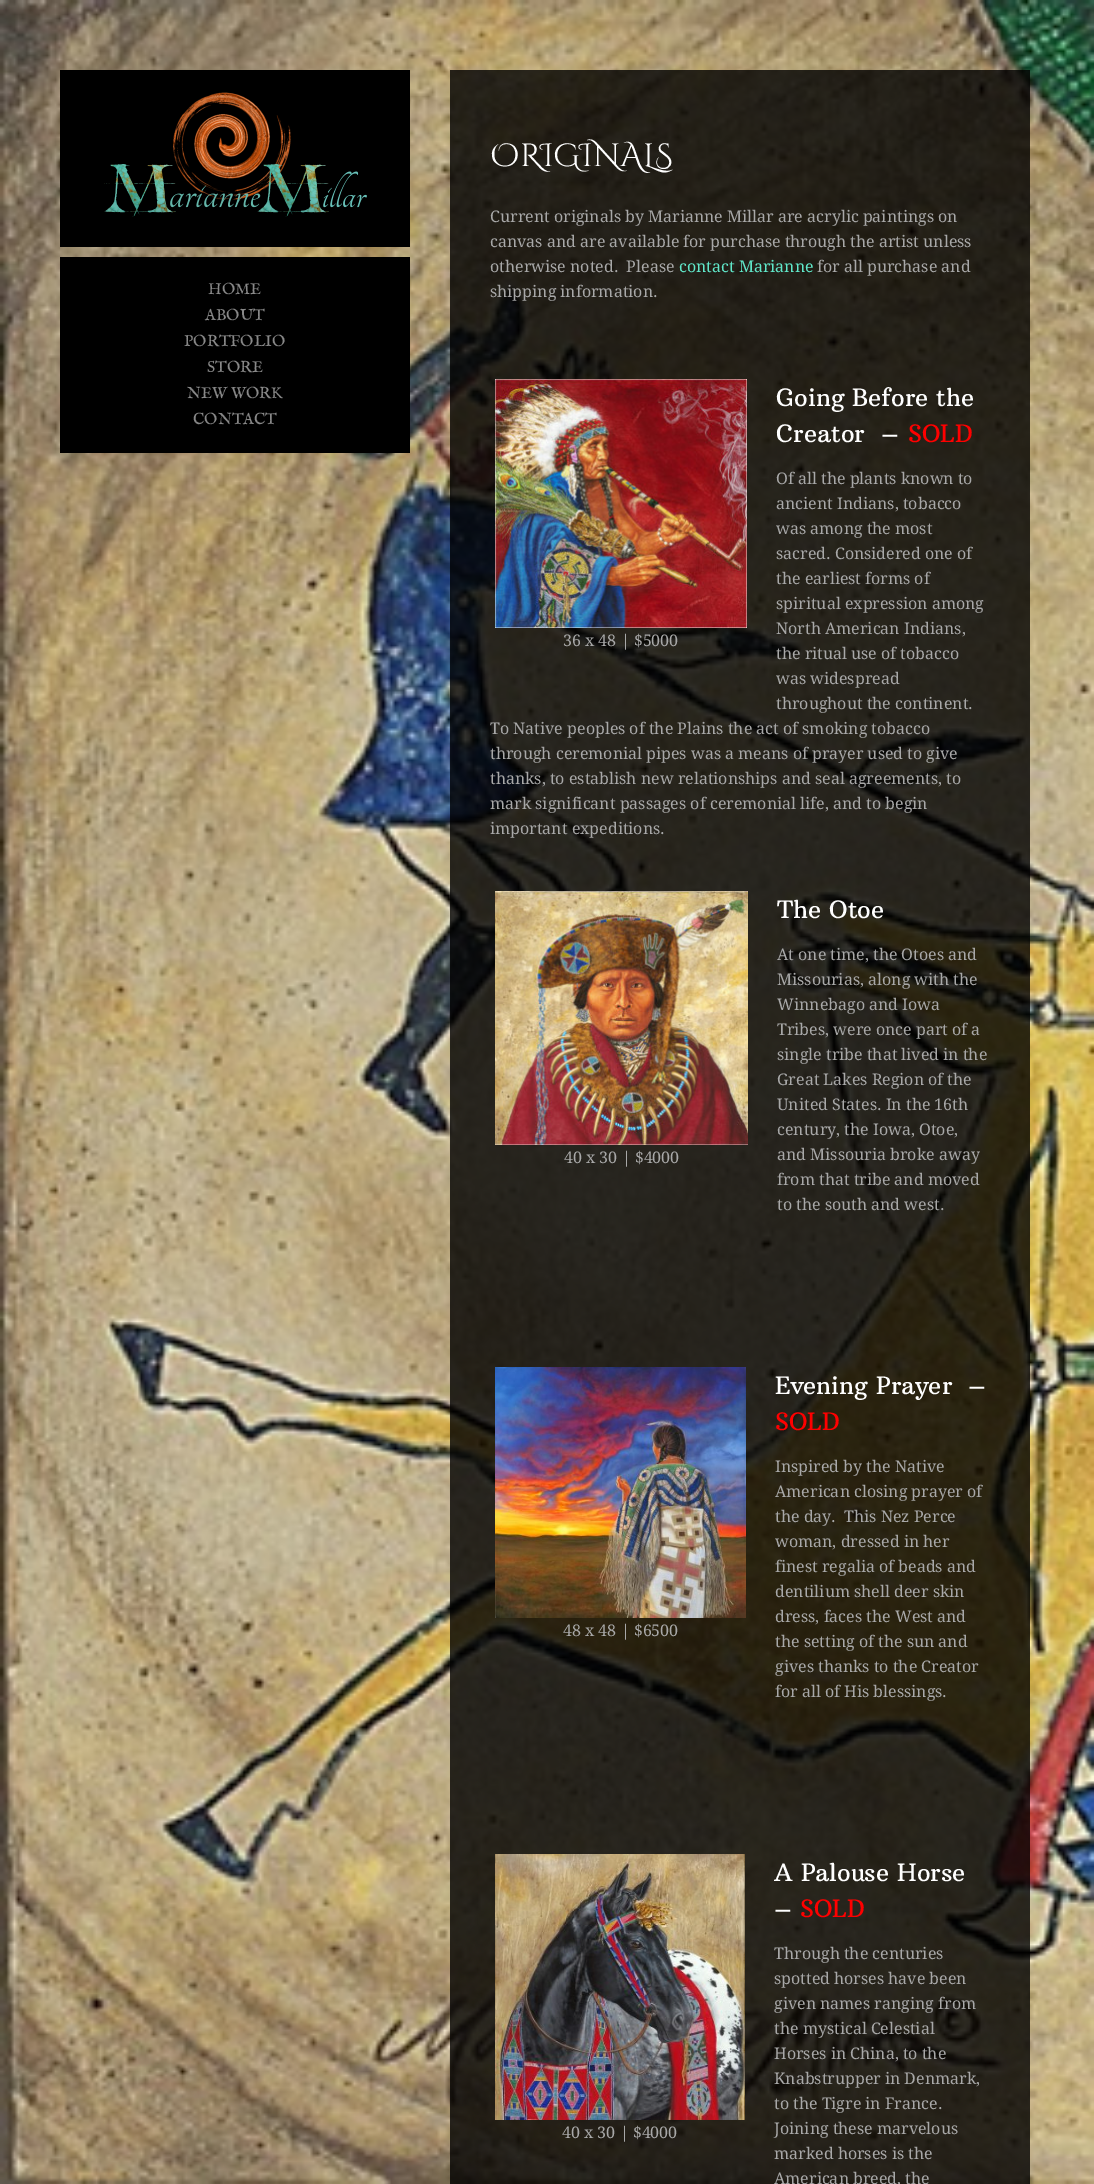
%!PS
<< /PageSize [1094 2184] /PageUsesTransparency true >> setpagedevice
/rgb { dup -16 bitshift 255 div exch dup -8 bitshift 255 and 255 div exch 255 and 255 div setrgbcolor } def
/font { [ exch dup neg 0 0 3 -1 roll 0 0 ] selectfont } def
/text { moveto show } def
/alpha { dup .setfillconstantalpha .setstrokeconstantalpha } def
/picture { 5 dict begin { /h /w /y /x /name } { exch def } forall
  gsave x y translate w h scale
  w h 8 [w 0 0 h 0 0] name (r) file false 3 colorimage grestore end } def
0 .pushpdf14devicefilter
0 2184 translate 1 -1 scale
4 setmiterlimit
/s1 { /IMFELLEnglish-Regular 16 font 16#888888 rgb } def
/s2 { /CinzelDecorative-Regular 32 font 16#FFFFFF rgb } def
/s3 { /DroidSerif-Regular 16 font 16#A8A8A8 rgb } def
/s4 { /DroidSerif-Regular 16 font 16#60E8CA rgb } def
/s5 { /ArbutusSlab-Regular 24 font 16#FFFFFF rgb } def
/s6 { /ArbutusSlab-Regular 24 font 16#FF0000 rgb } def
16#FFFFFF rgb
0 0 1094 2184 rectfill
(pic1.raw) 0 0 1094 2184 picture
16#000000 rgb
60 70 350 177 rectfill
(pic2.raw) 104 92 263 125 picture
60 257 350 196 rectfill
s1
(HOME) 208 294 text
(ABOUT) 205 320 text
(PORTFOLIO) 184 346 text
(STORE) 207 372 text
(NEW WORK) 187 398 text
(CONTACT) 193 424 text
0.8 alpha
16#000000 rgb
450 70 580 45 rectfill
450 115 580 2069 rectfill
1 alpha
s2
(ORIGINALS) 490 166 text
s3
(Current originals by Marianne Millar are acrylic paintings on) 490 222 text
(canvas and are available for purchase through the artist unless) 490 247 text
(otherwise noted.  Please) 490 272 text
s4
(contact Marianne) 679 272 text
s3
(for all purchase and) 817 272 text
(shipping information.) 490 297 text
s5
(Going Before the) 776 406 text
(Creator  –) 776 442 text
s6
(SOLD) 908 442 text
s3
(Of all the plants known to) 776 484 text
(ancient Indians, tobacco) 776 509 text
(was among the most) 776 534 text
(sacred. Considered one of) 776 559 text
(the earliest forms of) 776 584 text
(spiritual expression among) 776 609 text
(North American Indians,) 776 634 text
(the ritual use of tobacco) 776 659 text
(was widespread) 776 684 text
(throughout the continent.) 776 709 text
(To Native peoples of the Plains the act of smoking tobacco) 490 734 text
(through ceremonial pipes was a means of prayer used to give) 490 759 text
(thanks, to establish new relationships and seal agreements, to) 490 784 text
(mark significant passages of ceremonial life, and to begin) 490 809 text
(important expeditions.) 490 834 text
(pic3.raw) 495 379 252 249 picture
(36 x 48 | $5000) 563 646 text
s5
(The Otoe) 777 918 text
(pic4.raw) 495 891 253 254 picture
s3
(40 x 30 | $4000) 564 1163 text
(At one time, the Otoes and) 777 960 text
(Missourias, along with the) 777 985 text
(Winnebago and Iowa) 777 1010 text
(Tribes, were once part of a) 777 1035 text
(single tribe that lived in the) 777 1060 text
(Great Lakes Region of the) 777 1085 text
(United States. In the 16th) 777 1110 text
(century, the Iowa, Otoe,) 777 1135 text
(and Missouria broke away) 777 1160 text
(from that tribe and moved) 777 1185 text
(to the south and west.) 777 1210 text
s5
(Evening Prayer  –) 775 1394 text
s6
(SOLD) 775 1430 text
(pic5.raw) 495 1367 251 251 picture
s3
(48 x 48 | $6500) 563 1636 text
(Inspired by the Native) 775 1472 text
(American closing prayer of) 775 1497 text
(the day.  This Nez Perce) 775 1522 text
(woman, dressed in her) 775 1547 text
(finest regalia of beads and) 775 1572 text
(dentilium shell deer skin) 775 1597 text
(dress, faces the West and) 775 1622 text
(the setting of the sun and) 775 1647 text
(gives thanks to the Creator) 775 1672 text
(for all of His blessings.) 775 1697 text
s5
(A Palouse Horse) 774 1881 text
(–) 774 1917 text
s6
(SOLD) 800 1917 text
(pic6.raw) 495 1854 250 266 picture
s3
(40 x 30 | $4000) 562 2138 text
(Through the centuries) 774 1959 text
(spotted horses have been) 774 1984 text
(given names ranging from) 774 2009 text
(the mystical Celestial) 774 2034 text
(Horses in China, to the) 774 2059 text
(Knabstrupper in Denmark,) 774 2084 text
(to the Tigre in France.) 774 2109 text
(Joining these marvelous) 774 2134 text
(marked horses is the) 774 2159 text
(American breed, the) 774 2184 text
.poppdf14devicefilter showpage
